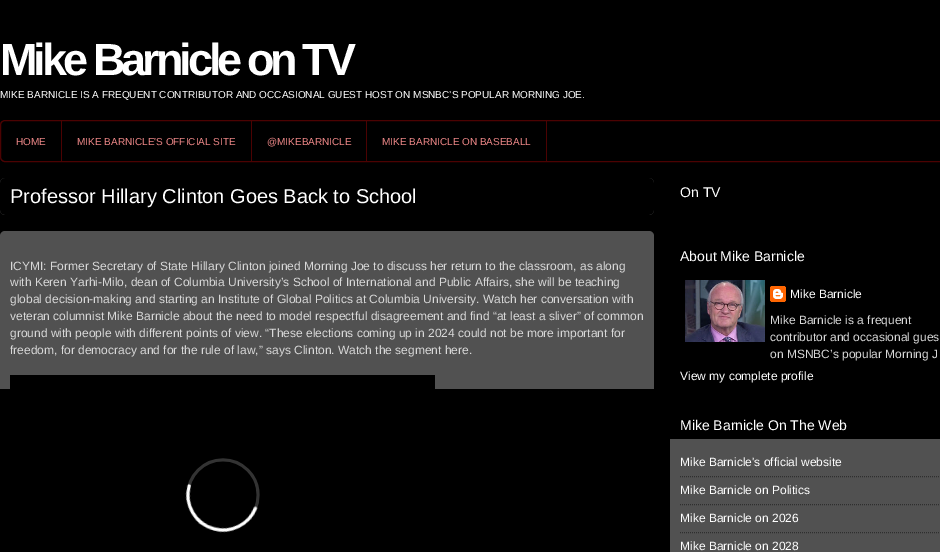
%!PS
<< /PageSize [940 552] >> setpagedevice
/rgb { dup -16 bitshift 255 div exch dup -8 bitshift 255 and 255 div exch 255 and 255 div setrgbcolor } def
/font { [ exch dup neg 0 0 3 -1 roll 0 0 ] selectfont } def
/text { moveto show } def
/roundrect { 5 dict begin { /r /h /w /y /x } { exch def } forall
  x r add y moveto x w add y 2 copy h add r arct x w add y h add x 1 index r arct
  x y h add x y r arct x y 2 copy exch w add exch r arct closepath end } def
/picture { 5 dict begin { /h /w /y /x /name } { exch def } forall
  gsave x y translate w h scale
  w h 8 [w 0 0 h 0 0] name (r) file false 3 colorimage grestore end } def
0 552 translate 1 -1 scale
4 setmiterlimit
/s1 { /LiberationSans-Regular 10 font 16#FFFFFF rgb } def
/s2 { /LiberationSans-Regular 10 font 16#ED8787 rgb } def
/s3 { /LiberationSans-Regular 20 font 16#FFFFFF rgb } def
/s4 { /LiberationSans-Regular 12 font 16#D8D8D8 rgb } def
/s5 { /LiberationSans-Regular 14 font 16#FFFFFF rgb } def
/s6 { /LiberationSans-Regular 12 font 16#FFFFFF rgb } def
16#000000 rgb
0 0 940 552 rectfill
/LiberationSans-Bold 45 font
16#FFFFFF rgb
0 75 moveto -4 0 (Mike Barnicle on TV) ashow
s1
(MIKE BARNICLE IS A FREQUENT CONTRIBUTOR AND OCCASIONAL GUEST HOST ON MSNBC’S POPULAR MORNING JOE.) 0 98 text
(pic1.raw) 0 121 940 41 picture
16#4C0202 rgb
0.5 120.5 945 41 4.5 roundrect stroke
61 121 1 40 rectfill
s2
(HOME) 16 145 text
16#4C0202 rgb
251 121 1 40 rectfill
s2
(MIKE BARNICLE'S OFFICIAL SITE) 77 145 text
16#4C0202 rgb
366 121 1 40 rectfill
s2
(@MIKEBARNICLE) 267 145 text
16#4C0202 rgb
546 121 1 40 rectfill
s2
(MIKE BARNICLE ON BASEBALL) 382 145 text
(pic2.raw) 0 178 654 37 picture
s3
(Professor Hillary Clinton Goes Back to School) 10 203 text
16#515151 rgb
0 231 654 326 5 roundrect fill
16#000000 rgb
0 389 654 163 rectfill
s4
(ICYMI: Former Secretary of State Hillary Clinton joined Morning Joe to discuss her return to the classroom, as along) 10 270 text
(with Keren Yarhi-Milo, dean of Columbia University’s School of International and Public Affairs, she will be teaching) 10 286 text
(global decision-making and starting an Institute of Global Politics at Columbia University. Watch her conversation with) 10 303 text
(veteran columnist Mike Barnicle about the need to model respectful disagreement and find “at least a sliver” of common) 10 320 text
(ground with people with different points of view. “These elections coming up in 2024 could not be more important for) 10 337 text
(freedom, for democracy and for the rule of law,” says Clinton. Watch the segment here.) 10 354 text
(pic3.raw) 10 375 425 158 picture
s5
(On TV) 680 197 text
(About Mike Barnicle) 680 261 text
(pic4.raw) 685 280 80 62 picture
(pic5.raw) 770 286 16 16 picture
s6
(Mike Barnicle) 790 298 text
s4
(Mike Barnicle is a frequent) 770 324 text
(contributor and occasional gues) 770 341 text
(on MSNBC’s popular Morning J) 770 358 text
s6
(View my complete profile) 680 380 text
s5
(Mike Barnicle On The Web) 680 430 text
16#515151 rgb
670 439 270 113 rectfill
16#2F2F2F rgb
[1 1] 0 setdash
680 476.5 moveto 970 476.5 lineto stroke
s6
(Mike Barnicle's official website) 680 466 text
16#2F2F2F rgb
680 504.5 moveto 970 504.5 lineto stroke
s6
(Mike Barnicle on Politics) 680 494 text
16#2F2F2F rgb
680 532.5 moveto 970 532.5 lineto stroke
s6
(Mike Barnicle on 2026) 680 522 text
(Mike Barnicle on 2028) 680 550 text
showpage
